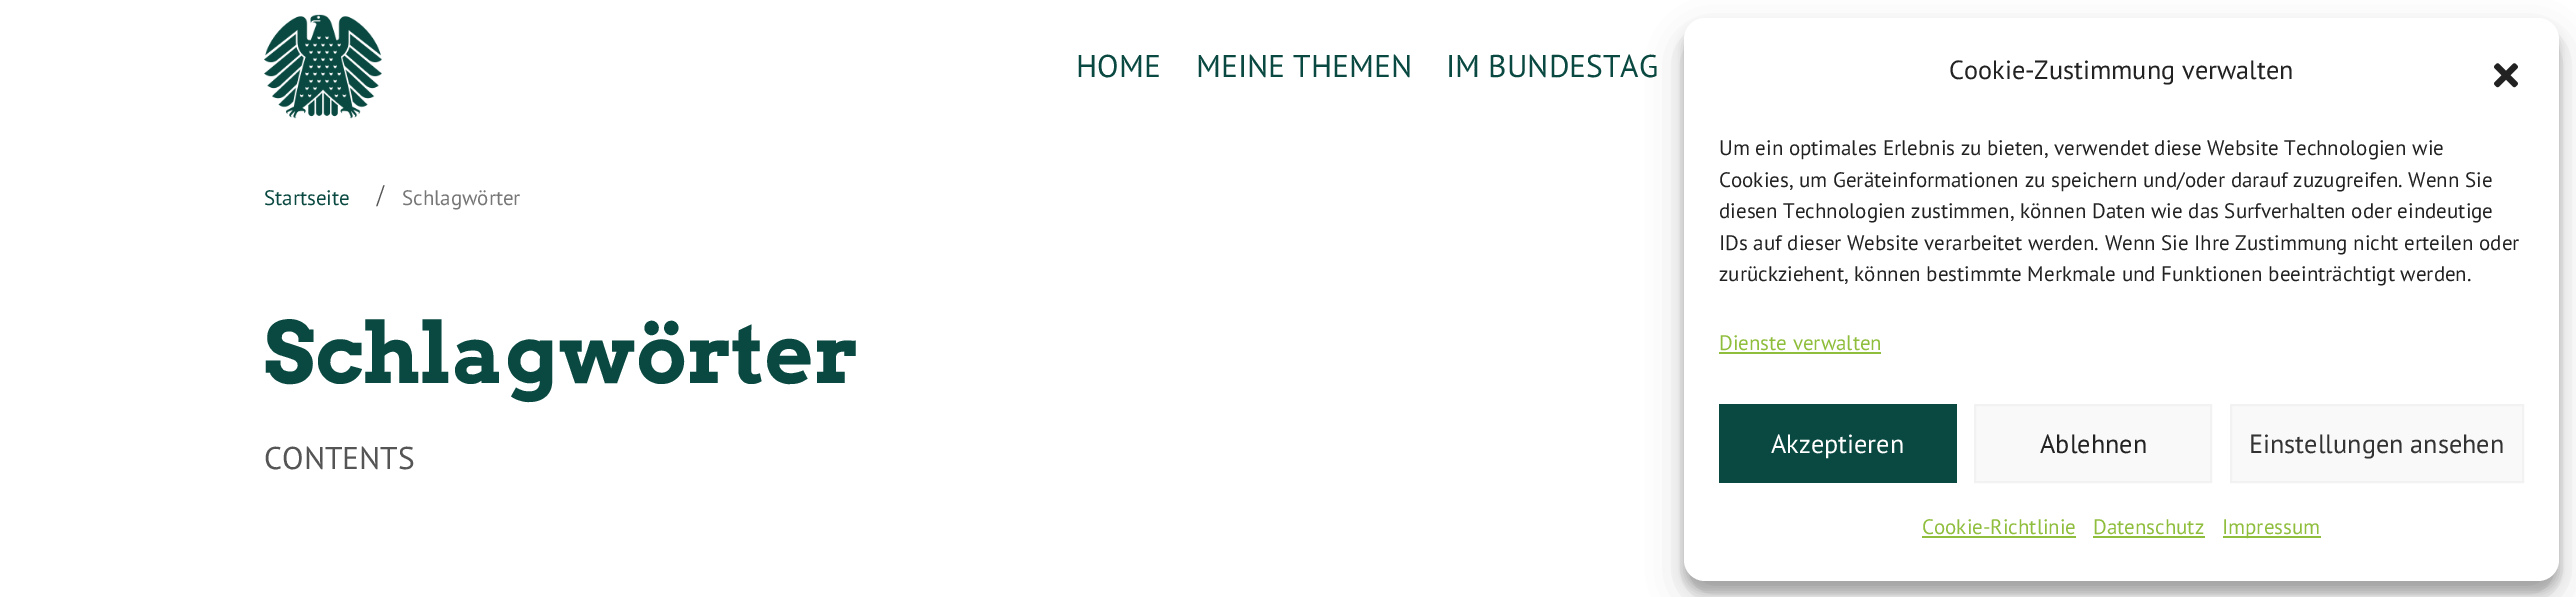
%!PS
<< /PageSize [2576 597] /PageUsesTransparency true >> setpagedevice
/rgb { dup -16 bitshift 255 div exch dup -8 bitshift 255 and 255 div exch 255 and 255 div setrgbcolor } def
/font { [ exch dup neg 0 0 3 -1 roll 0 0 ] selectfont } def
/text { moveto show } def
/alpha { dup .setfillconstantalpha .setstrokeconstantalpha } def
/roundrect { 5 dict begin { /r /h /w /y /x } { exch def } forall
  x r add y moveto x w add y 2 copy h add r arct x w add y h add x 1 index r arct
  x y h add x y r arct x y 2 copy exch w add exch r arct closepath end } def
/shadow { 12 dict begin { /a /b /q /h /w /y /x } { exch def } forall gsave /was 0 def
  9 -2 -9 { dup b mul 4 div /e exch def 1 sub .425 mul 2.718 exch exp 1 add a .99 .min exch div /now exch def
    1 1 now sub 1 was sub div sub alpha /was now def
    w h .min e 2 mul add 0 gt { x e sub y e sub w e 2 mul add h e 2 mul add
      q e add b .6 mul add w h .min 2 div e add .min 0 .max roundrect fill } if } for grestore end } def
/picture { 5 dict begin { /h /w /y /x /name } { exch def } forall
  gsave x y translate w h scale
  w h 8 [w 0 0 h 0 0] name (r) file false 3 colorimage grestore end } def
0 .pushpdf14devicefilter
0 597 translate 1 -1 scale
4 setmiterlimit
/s1 { /PTSans-Regular 21 font 16#0A4941 rgb } def
/s2 { /LiberationSerif-Regular 31.5 font 16#555555 rgb } def
/s3 { /PTSans-Regular 21 font 16#777777 rgb } def
/s4 { /Arvo-Bold 84 font 16#0A4941 rgb } def
/s5 { /PTSans-Regular 31.5 font 16#555555 rgb } def
/s6 { /PTSans-Regular 31.5 font 16#0A4941 rgb } def
/s7 { /PTSans-Regular 26.25 font 16#222222 rgb } def
/s8 { /PTSans-Regular 21 font 16#222222 rgb } def
/s9 { /PTSans-Regular 21 font 16#8FBD3C rgb } def
/s10 { /PTSans-Regular 26.25 font 16#FFFFFF rgb } def
/s11 { /PTSans-Regular 26.25 font 16#333333 rgb } def
16#FFFFFF rgb
0 0 2576 597 rectfill
s1
(Startseite) 264 205 text
s2
(/) 376 206 text
s3
(Schlagwörter) 402 205 text
s4
(Schlagwörter) 264 383 text
s5
(CONTENTS) 264 469 text
(pic1.raw) 264 14 118 105 picture
s6
(HOME) 1076 77 text
(MEINE THEMEN) 1196 77 text
(IM BUNDESTAG) 1446 77 text
16#000000 rgb
1684 28 875 564 21 5 0.23 shadow
1684 35 875 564 21 17.5 0.19 shadow
16#FFFFFF rgb
1684 18 875 563 21 roundrect fill
s7
(Cookie-Zustimmung verwalten) 1949 79 text
(pic2.raw) 2494 63 24 25 picture
s8
(Um ein optimales Erlebnis zu bieten, verwendet diese Website Technologien wie) 1719 155 text
(Cookies, um Geräteinformationen zu speichern und/oder darauf zuzugreifen. Wenn Sie) 1719 187 text
(diesen Technologien zustimmen, können Daten wie das Surfverhalten oder eindeutige) 1719 218 text
(IDs auf dieser Website verarbeitet werden. Wenn Sie Ihre Zustimmung nicht erteilen oder) 1719 250 text
(zurückziehent, können bestimmte Merkmale und Funktionen beeinträchtigt werden.) 1719 281 text
s9
(Dienste verwalten) 1719 350 text
1719 352 162 2 rectfill
16#0A4941 rgb
1719 404 238 79 rectfill
s10
(Akzeptieren) 1771 453 text
16#F9F9F9 rgb
1975 405 moveto 2211 405 lineto 2211 482 lineto 1975 482 lineto closepath gsave fill grestore
16#F2F2F2 rgb
2 setlinewidth
stroke
s7
(Ablehnen) 2040 453 text
16#F9F9F9 rgb
2231 405 moveto 2523 405 lineto 2523 482 lineto 2231 482 lineto closepath gsave fill grestore
16#F2F2F2 rgb
stroke
s11
(Einstellungen ansehen) 2249 453 text
s9
(Cookie-Richtlinie) 1922 534 text
1922 536 154 2 rectfill
(Datenschutz) 2093 534 text
2093 536 112 2 rectfill
2223 536 98 2 rectfill
(Impressum) 2222 534 text
.poppdf14devicefilter showpage
